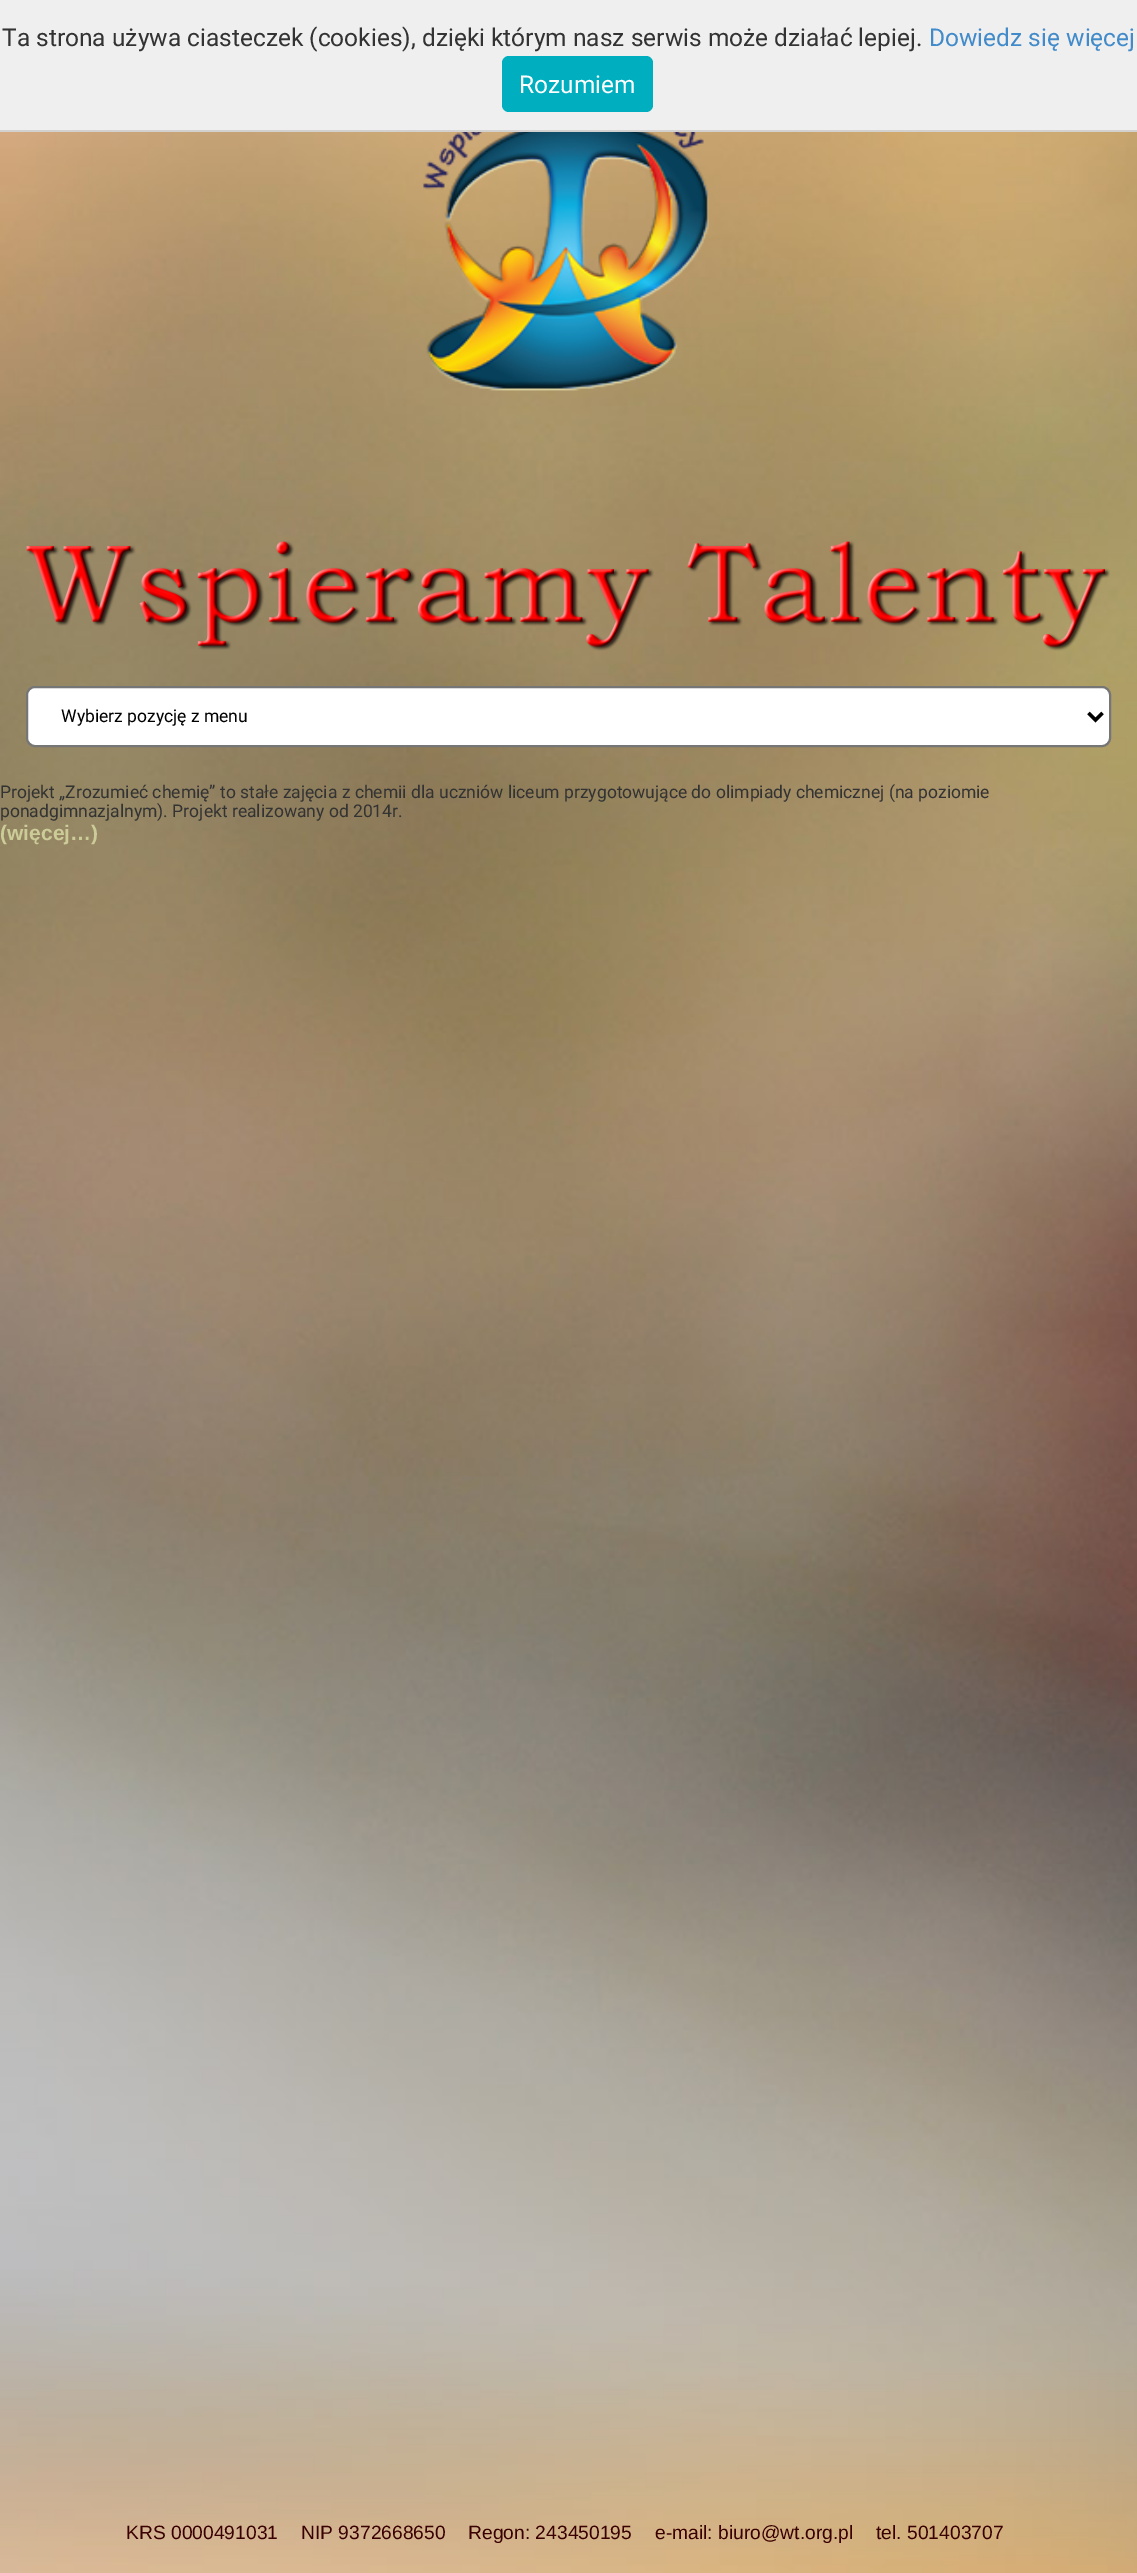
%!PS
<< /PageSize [1137 2573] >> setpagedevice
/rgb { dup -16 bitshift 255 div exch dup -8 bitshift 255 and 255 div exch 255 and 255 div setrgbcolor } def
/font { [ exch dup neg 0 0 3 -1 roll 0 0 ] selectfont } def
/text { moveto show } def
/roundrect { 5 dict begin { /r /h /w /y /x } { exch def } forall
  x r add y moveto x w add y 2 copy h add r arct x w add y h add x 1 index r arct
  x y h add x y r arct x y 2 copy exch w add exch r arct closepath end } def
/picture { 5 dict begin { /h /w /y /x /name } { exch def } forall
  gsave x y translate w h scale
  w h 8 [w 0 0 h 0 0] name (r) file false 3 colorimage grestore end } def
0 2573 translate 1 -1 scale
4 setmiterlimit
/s1 { /Roboto-Regular 24.5 font 16#333333 rgb } def
/s2 { /Roboto-Regular 24.5 font 16#428BCA rgb } def
/s3 { /Roboto-Regular 24.5 font 16#FFFFFF rgb } def
/s4 { /Roboto-Regular 17.5 font 16#000000 rgb } def
/s5 { /Roboto-Regular 17.5 font 16#333333 rgb } def
/s6 { /LiberationSans-Bold 21 font 16#CCCC99 rgb } def
/s7 { /LiberationSans-Regular 19.25 font 16#3A0000 rgb } def
16#FFFFFF rgb
0 0 1137 2573 rectfill
(pic1.raw) 0 132 1137 2441 picture
16#EFEFEF rgb
0 0 1137 130 rectfill
16#D3D0D0 rgb
0 130 1137 2 rectfill
s1
(Ta strona używa ciasteczek \(cookies\), dzięki którym nasz serwis może działać lepiej.) 2 46 text
s2
(Dowiedz się więcej) 929 46 text
16#00AFBF rgb
502 56 151 56 7 roundrect fill
s3
(Rozumiem) 519 93 text
(pic2.raw) 423 132 286 259 picture
(pic3.raw) 26 541 1084 110 picture
27 687 1083 59 8 roundrect gsave fill grestore
16#767676 rgb
2 setlinewidth
stroke
16#000000 rgb
3.5 setlinewidth
1088.5 713 moveto 1095.5 720 lineto 1102.5 713 lineto stroke
s4
(Wybierz pozycję z menu) 61 722 text
s5
(Projekt „Zrozumieć chemię” to stałe zajęcia z chemii dla uczniów liceum przygotowujące do olimpiady chemicznej \(na poziomie) 0 798 text
(ponadgimnazjalnym\). Projekt realizowany od 2014r.) 0 817 text
s6
(\(więcej…\)) 0 840 text
s7
(KRS 0000491031) 126 2539 text
(NIP 9372668650) 301 2539 text
(Regon: 243450195) 468 2539 text
(e-mail: biuro@wt.org.pl) 655 2539 text
(tel. 501403707) 876 2539 text
showpage
